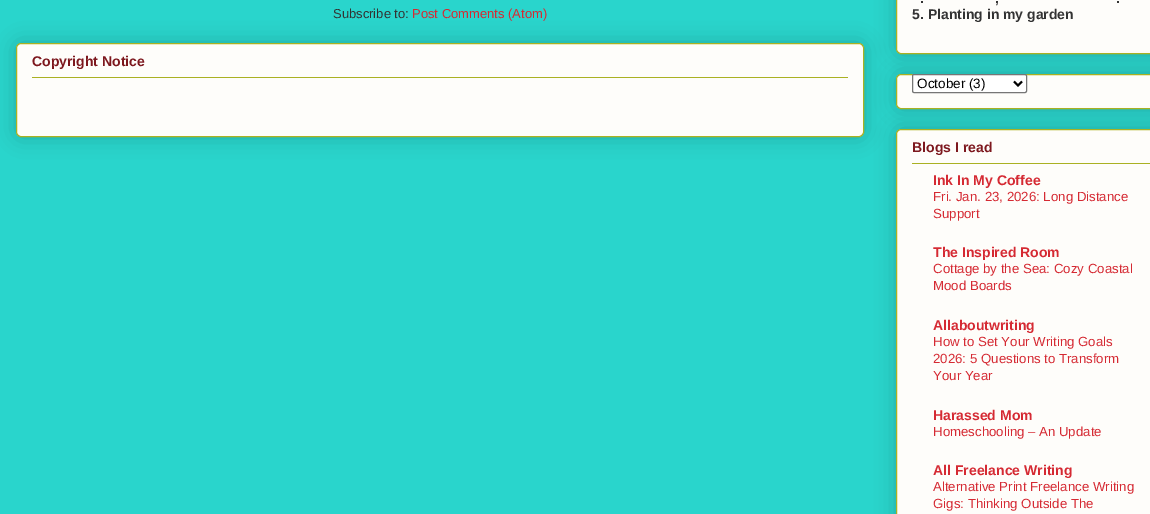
%!PS
<< /PageSize [1150 514] /PageUsesTransparency true >> setpagedevice
/rgb { dup -16 bitshift 255 div exch dup -8 bitshift 255 and 255 div exch 255 and 255 div setrgbcolor } def
/font { [ exch dup neg 0 0 3 -1 roll 0 0 ] selectfont } def
/text { moveto show } def
/alpha { dup .setfillconstantalpha .setstrokeconstantalpha } def
/roundrect { 5 dict begin { /r /h /w /y /x } { exch def } forall
  x r add y moveto x w add y 2 copy h add r arct x w add y h add x 1 index r arct
  x y h add x y r arct x y 2 copy exch w add exch r arct closepath end } def
/shadow { 12 dict begin { /a /b /q /h /w /y /x } { exch def } forall gsave /was 0 def
  9 -2 -9 { dup b mul 4 div /e exch def 1 sub .425 mul 2.718 exch exp 1 add a .99 .min exch div /now exch def
    1 1 now sub 1 was sub div sub alpha /was now def
    w h .min e 2 mul add 0 gt { x e sub y e sub w e 2 mul add h e 2 mul add
      q e add b .6 mul add w h .min 2 div e add .min 0 .max roundrect fill } if } for grestore end } def
0 .pushpdf14devicefilter
0 514 translate 1 -1 scale
4 setmiterlimit
/s1 { /LiberationSans-Regular 13 font 16#333333 rgb } def
/s2 { /LiberationSans-Regular 13 font 16#D52A33 rgb } def
/s3 { /LiberationSans-Bold 14 font 16#7D181E rgb } def
/s4 { /LiberationSans-Bold 14 font 16#333333 rgb } def
/s5 { /LiberationSans-Regular 13.5 font 16#000000 rgb } def
/s6 { /LiberationSans-Bold 14 font 16#D52A33 rgb } def
/s7 { /LiberationSans-Regular 13.25 font 16#D52A33 rgb } def
16#29D5CC rgb
0 0 1150 514 rectfill
s1
(Subscribe to:) 333 18 text
s2
(Post Comments \(Atom\)) 412 18 text
16#000000 rgb
16 43 848 94 5 10 0.2 shadow
16#FEFDFA rgb
16.5 43.5 847 93 4.5 roundrect gsave fill grestore
16#AAB122 rgb
stroke
s3
(Copyright Notice) 32 66 text
16#AAB122 rgb
32 77 816 1 rectfill
16#000000 rgb
896 -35 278 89 5 10 0.2 shadow
16#FEFDFA rgb
896.5 -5.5 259 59 4.5 roundrect gsave fill grestore
16#AAB122 rgb
stroke
s4
(.) 920 3 text
(,) 995 3 text
(.) 1116 3 text
(5. Planting in my garden) 912 19 text
16#000000 rgb
896 74 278 35 5 10 0.2 shadow
16#FEFDFA rgb
896.5 74.5 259 34 4.5 roundrect gsave fill grestore
16#AAB122 rgb
stroke
16#FFFFFF rgb
912.5 74.5 114 18 1.5 roundrect gsave fill grestore
16#767676 rgb
stroke
16#000000 rgb
2 setlinewidth
1014 81.5 moveto 1018 85.5 lineto 1022 81.5 lineto stroke
s5
(October \(3\)) 917 88 text
896 129 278 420 5 10 0.2 shadow
16#FEFDFA rgb
896.5 129.5 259 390 4.5 roundrect gsave fill grestore
16#AAB122 rgb
1 setlinewidth
stroke
s3
(Blogs I read) 912 152 text
16#AAB122 rgb
912 163 238 1 rectfill
s6
(Ink In My Coffee) 933 185 text
s7
(Fri. Jan. 23, 2026: Long Distance) 933 201 text
(Support) 933 218 text
s6
(The Inspired Room) 933 257 text
s7
(Cottage by the Sea: Cozy Coastal) 933 273 text
(Mood Boards) 933 290 text
s6
(Allaboutwriting) 933 330 text
s7
(How to Set Your Writing Goals) 933 346 text
(2026: 5 Questions to Transform) 933 363 text
(Your Year) 933 380 text
s6
(Harassed Mom) 933 420 text
s7
(Homeschooling – An Update) 933 436 text
s6
(All Freelance Writing) 933 475 text
s7
(Alternative Print Freelance Writing) 933 491 text
(Gigs: Thinking Outside The) 933 508 text
.poppdf14devicefilter showpage
